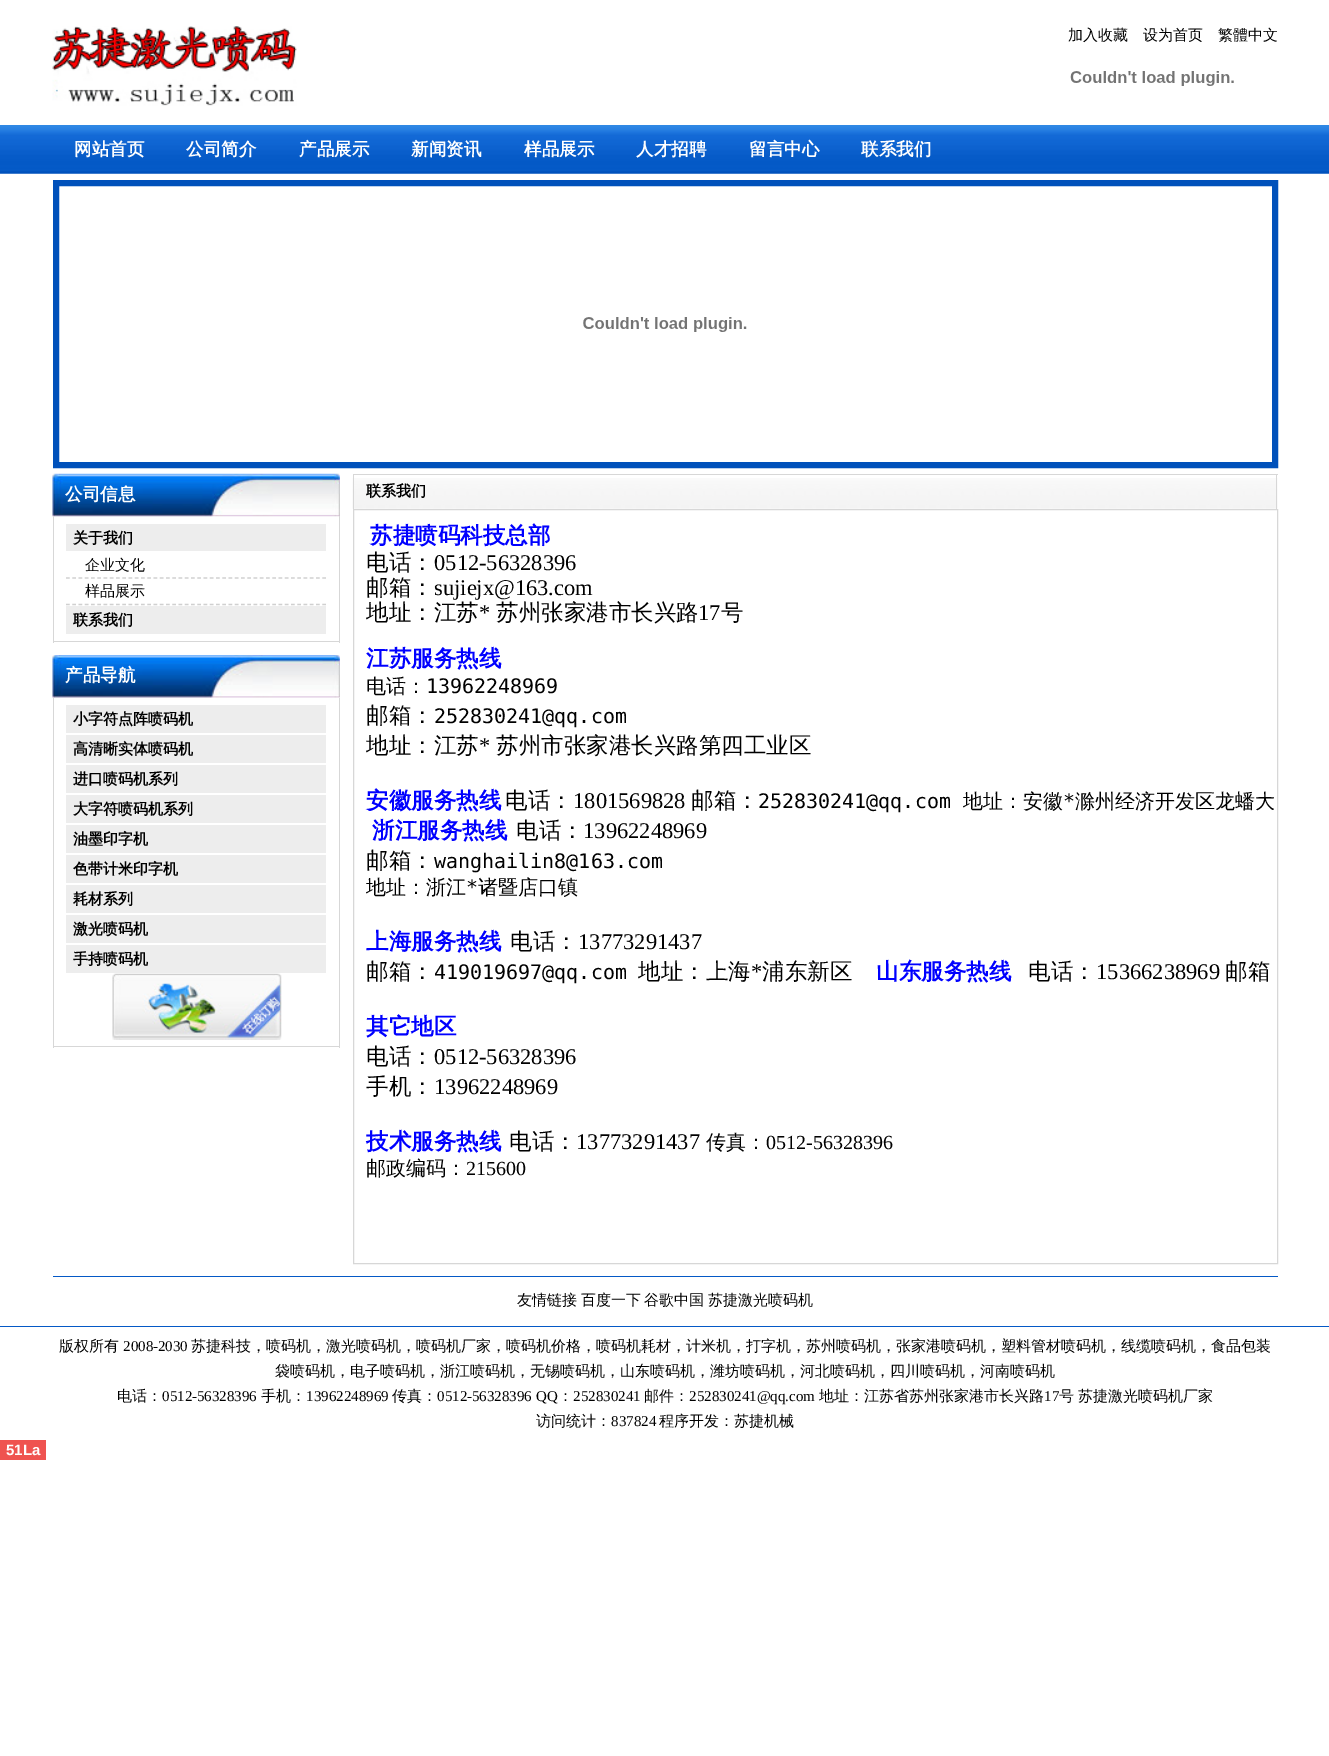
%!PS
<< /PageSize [1329 1756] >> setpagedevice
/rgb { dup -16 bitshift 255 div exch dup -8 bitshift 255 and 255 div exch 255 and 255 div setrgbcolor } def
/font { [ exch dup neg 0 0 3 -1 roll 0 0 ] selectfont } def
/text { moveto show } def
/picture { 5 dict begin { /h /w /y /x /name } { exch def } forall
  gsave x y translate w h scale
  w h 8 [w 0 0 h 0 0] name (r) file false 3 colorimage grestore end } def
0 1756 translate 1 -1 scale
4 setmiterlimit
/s1 { /WenQuanYiZenHei-Medium 15 font 16#000000 rgb } def
/s2 { /WenQuanYiZenHei-Bold 17.5 font 16#FFFFFF rgb } def
/s3 { /WenQuanYiZenHei-Bold 15 font 16#000000 rgb } def
/s4 { /WenQuanYiZenHei-Bold 22.5 font 16#0000FF rgb } def
/s5 { /WenQuanYiZenHei-Medium 22.5 font 16#000000 rgb } def
/s6 { /LiberationSerif-Regular 22.5 font 16#000000 rgb } def
/s7 { /WenQuanYiZenHei-Medium 20 font 16#000000 rgb } def
/s8 { /DejaVuSansMono-Regular 20 font 16#000000 rgb } def
/s9 { /LiberationSerif-Regular 20 font 16#000000 rgb } def
/s10 { /LiberationSerif-Regular 15 font 16#000000 rgb } def
/s11 { /LiberationSans-Bold 15 font 16#FFFFFF rgb } def
16#FFFFFF rgb
0 0 1329 1756 rectfill
(pic1.raw) 52 26 245 80 picture
s1
(加入收藏) 1068 40 text
(设为首页) 1143 40 text
(繁體中文) 1218 40 text
(pic2.raw) 1070 71 164 15 picture
(pic3.raw) 0 125 1329 49 picture
s2
(网站首页) 74 155 text
(公司简介) 186 155 text
(产品展示) 299 155 text
(新闻资讯) 411 155 text
(样品展示) 524 155 text
(人才招聘) 636 155 text
(留言中心) 749 155 text
(联系我们) 861 155 text
16#0051BB rgb
6 setlinewidth
56 183 1219 282 rectstroke
(pic4.raw) 583 317 164 15 picture
(pic5.raw) 52 473 288 44 picture
s2
(公司信息) 65 500 text
16#D7D7D7 rgb
339 516 1 127 rectfill
53 641 287 1 rectfill
53 516 1 127 rectfill
16#EDEDED rgb
66 524 260 27 rectfill
s3
(关于我们) 73 543 text
16#D0D0D0 rgb
1.2 setlinewidth
[3.75 2.5] 0 setdash
66 578 moveto 326 578 lineto stroke
s1
(企业文化) 85 570 text
16#D0D0D0 rgb
66 604.5 moveto 326 604.5 lineto stroke
s1
(样品展示) 85 596 text
16#EDEDED rgb
66 606 260 28 rectfill
s3
(联系我们) 73 625 text
(pic6.raw) 52 655 288 43 picture
s2
(产品导航) 65 681 text
16#D7D7D7 rgb
339 698 1 350 rectfill
53 1046 287 1 rectfill
53 698 1 350 rectfill
16#EDEDED rgb
66 705 260 28 rectfill
s3
(小字符点阵喷码机) 73 724 text
16#EDEDED rgb
66 735 260 28 rectfill
s3
(高清晰实体喷码机) 73 754 text
16#EDEDED rgb
66 765 260 28 rectfill
s3
(进口喷码机系列) 73 784 text
16#EDEDED rgb
66 795 260 28 rectfill
s3
(大字符喷码机系列) 73 814 text
16#EDEDED rgb
66 825 260 28 rectfill
s3
(油墨印字机) 73 844 text
16#EDEDED rgb
66 855 260 28 rectfill
s3
(色带计米印字机) 73 874 text
16#EDEDED rgb
66 885 260 28 rectfill
s3
(耗材系列) 73 904 text
16#EDEDED rgb
66 915 260 28 rectfill
s3
(激光喷码机) 73 934 text
16#EDEDED rgb
66 945 260 28 rectfill
s3
(手持喷码机) 73 964 text
(pic7.raw) 112 973 170 67 picture
(pic8.raw) 352 478 926 31 picture
16#D7D7D7 rgb
353 474 925 1 rectfill
1276 474 1 35 rectfill
353 474 1 35 rectfill
s3
(联系我们) 366 496 text
16#D7D7D7 rgb
1 setlinewidth
[] 0 setdash
353.5 509.5 924 754 rectstroke
s4
(苏捷喷码科技总部) 370 543 text
s5
(电话：) 366 570 text
s6
(0512-56328396) 434 570 text
s5
(邮箱：) 366 595 text
s6
(sujiejx@163.com) 434 595 text
s5
(地址：江苏) 366 620 text
s6
(*) 479 620 text
s5
(苏州张家港市长兴路) 496 620 text
s6
(17) 698 620 text
s5
(号) 721 620 text
s4
(江苏服务热线) 366 666 text
s7
(电话：) 366 693 text
s8
(13962248969) 426 693 text
s5
(邮箱：) 366 723 text
s8
(252830241@qq.com) 434 723 text
s5
(地址：江苏) 366 753 text
s6
(*) 479 753 text
s5
(苏州市张家港长兴路第四工业区) 496 753 text
s4
(安徽服务热线) 366 808 text
s5
(电话：) 505 808 text
s6
(1801569828) 573 808 text
s5
(邮箱：) 691 808 text
s8
(252830241@qq.com) 758 808 text
s7
(地址：安徽) 963 808 text
s8
(*) 1063 808 text
s7
(滁州经济开发区龙蟠大) 1075 808 text
s4
(浙江服务热线) 372 838 text
s5
(电话：) 516 838 text
s6
(13962248969) 583 838 text
s5
(邮箱：) 366 868 text
s8
(wanghailin8@163.com) 434 868 text
s7
(地址：浙江) 366 894 text
s8
(*) 466 894 text
s7
(诸暨店口镇) 478 894 text
s4
(上海服务热线) 366 949 text
s5
(电话：) 510 949 text
s6
(13773291437) 578 949 text
s5
(邮箱：) 366 979 text
s8
(419019697@qq.com) 434 979 text
s5
(地址：上海) 638 979 text
s6
(*) 751 979 text
s5
(浦东新区) 762 979 text
s4
(山东服务热线) 876 979 text
s5
(电话：) 1028 979 text
s6
(15366238969) 1096 979 text
s5
(邮箱) 1225 979 text
s4
(其它地区) 366 1034 text
s5
(电话：) 366 1064 text
s6
(0512-56328396) 434 1064 text
s5
(手机：) 366 1094 text
s6
(13962248969) 434 1094 text
s4
(技术服务热线) 366 1149 text
s5
(电话：) 509 1149 text
s6
(13773291437) 576 1149 text
s7
(传真：) 706 1149 text
s9
(0512-56328396) 766 1149 text
s7
(邮政编码：) 366 1175 text
s9
(215600) 466 1175 text
16#0459C6 rgb
53 1276 1225 1 rectfill
s1
(友情链接) 517 1305 text
(百度一下) 581 1305 text
(谷歌中国) 644 1305 text
(苏捷激光喷码机) 708 1305 text
16#0459C6 rgb
0 1326 1329 1 rectfill
s1
(版权所有) 59 1351 text
s10
(2008-2030) 123 1351 text
s1
(苏捷科技，喷码机，激光喷码机，喷码机厂家，喷码机价格，喷码机耗材，计米机，打字机，苏州喷码机，张家港喷码机，塑料管材喷码机，线缆喷码机，食品包装) 191 1351 text
(袋喷码机，电子喷码机，浙江喷码机，无锡喷码机，山东喷码机，潍坊喷码机，河北喷码机，四川喷码机，河南喷码机) 275 1376 text
(电话：) 117 1401 text
s10
(0512-56328396) 162 1401 text
s1
(手机：) 261 1401 text
s10
(13962248969) 306 1401 text
s1
(传真：) 392 1401 text
s10
(0512-56328396 QQ) 437 1401 text
s1
(：) 558 1401 text
s10
(252830241) 573 1401 text
s1
(邮件：) 644 1401 text
s10
(252830241@qq.com) 689 1401 text
s1
(地址：江苏省苏州张家港市长兴路) 819 1401 text
s10
(17) 1044 1401 text
s1
(号) 1059 1401 text
(苏捷激光喷码机厂家) 1078 1401 text
(访问统计：) 536 1426 text
s10
(837824) 611 1426 text
s1
(程序开发：苏捷机械) 659 1426 text
16#EF5350 rgb
0 1440 46 20 rectfill
s11
(51La) 6 1455 text
showpage
